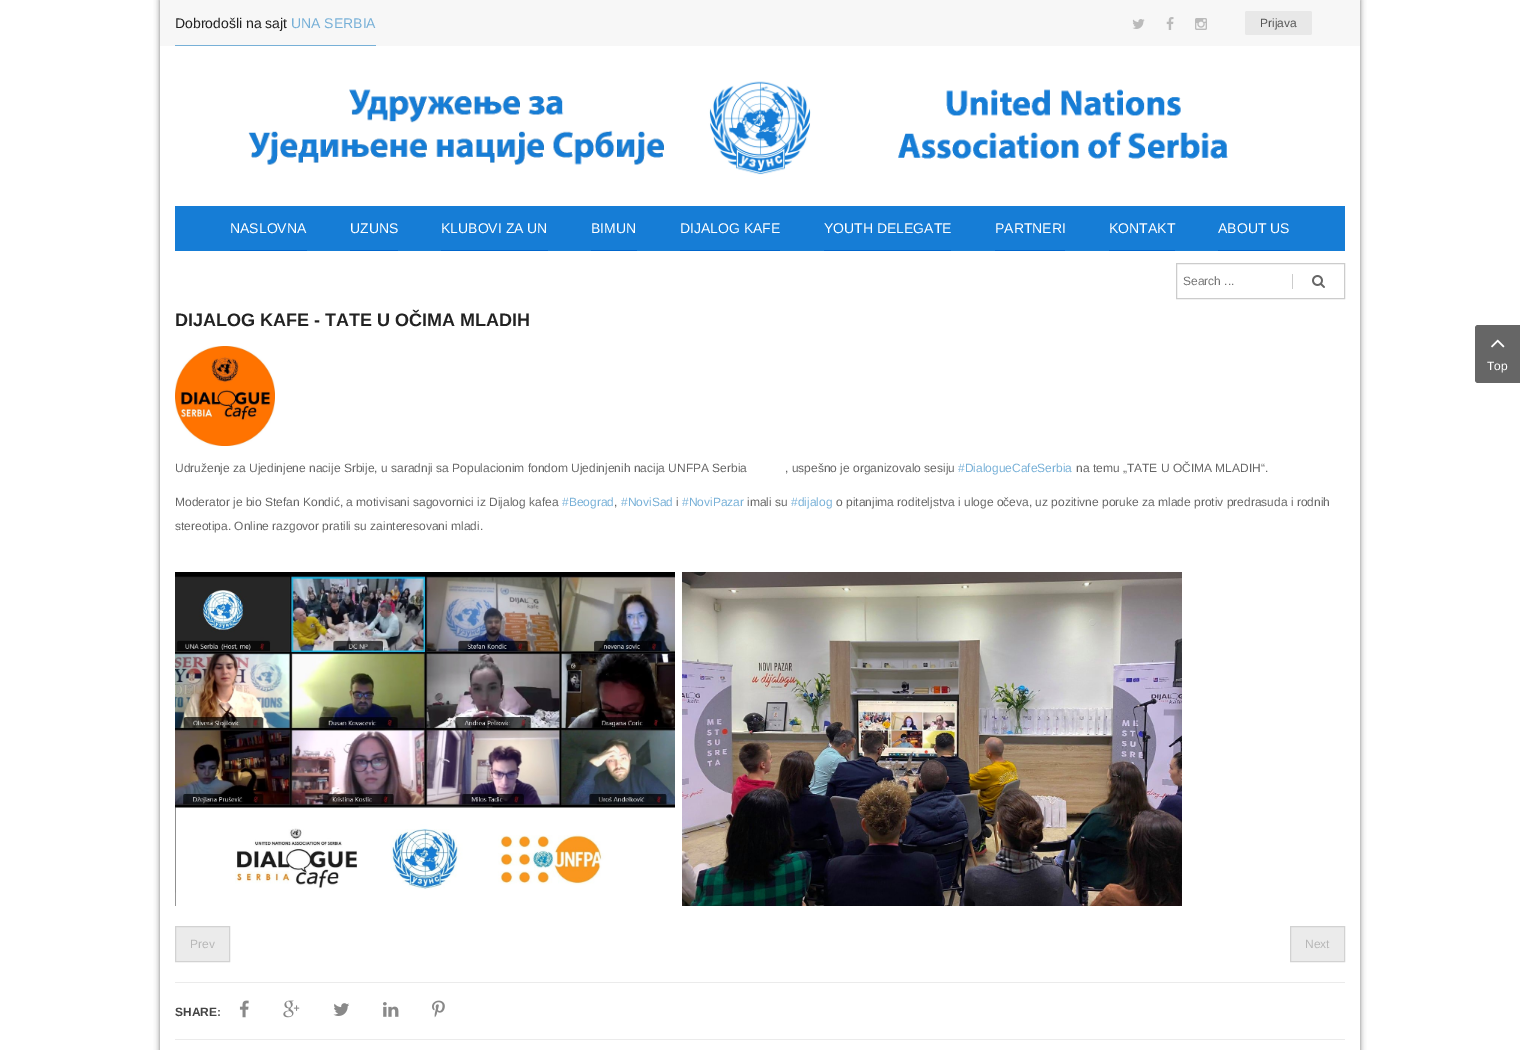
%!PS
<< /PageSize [1520 1050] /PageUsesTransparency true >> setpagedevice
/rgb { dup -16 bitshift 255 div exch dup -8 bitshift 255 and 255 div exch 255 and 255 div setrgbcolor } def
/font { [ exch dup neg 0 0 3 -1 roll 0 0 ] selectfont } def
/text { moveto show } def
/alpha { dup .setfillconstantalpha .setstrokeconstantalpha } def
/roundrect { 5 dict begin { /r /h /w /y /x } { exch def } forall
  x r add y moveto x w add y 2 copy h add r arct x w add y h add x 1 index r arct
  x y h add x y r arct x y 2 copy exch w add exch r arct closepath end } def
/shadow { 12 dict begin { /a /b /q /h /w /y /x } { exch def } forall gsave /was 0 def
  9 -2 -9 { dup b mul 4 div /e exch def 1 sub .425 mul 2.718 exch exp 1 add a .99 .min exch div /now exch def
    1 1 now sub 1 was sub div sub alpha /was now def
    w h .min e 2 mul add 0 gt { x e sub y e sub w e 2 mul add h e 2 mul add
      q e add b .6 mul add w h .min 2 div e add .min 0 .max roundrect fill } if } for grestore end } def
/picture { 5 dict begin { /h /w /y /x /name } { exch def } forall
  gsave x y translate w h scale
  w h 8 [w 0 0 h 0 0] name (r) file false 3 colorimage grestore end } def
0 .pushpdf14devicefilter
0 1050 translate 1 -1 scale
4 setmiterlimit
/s1 { /LiberationSans-Regular 14 font 16#222222 rgb } def
/s2 { /LiberationSans-Regular 14 font 16#77B0D7 rgb } def
/s3 { /LiberationSans-Regular 12 font 16#555555 rgb } def
/s4 { /LiberationSans-Regular 14 font 16#FFFFFF rgb } def
/s5 { /LiberationSans-Regular 12 font 16#757575 rgb } def
/s6 { /LiberationSans-Bold 18 font 16#222222 rgb } def
/s7 { /LiberationSans-Regular 12 font 16#666666 rgb } def
/s8 { /LiberationSans-Regular 12 font 16#77B0D7 rgb } def
/s9 { /LiberationSans-Regular 12 font 16#B7B7B7 rgb } def
/s10 { /LiberationSans-Bold 12 font 16#444444 rgb } def
/s11 { /LiberationSans-Regular 12 font 16#FFFFFF rgb } def
16#FFFFFF rgb
0 0 1520 1050 rectfill
gsave
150 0 moveto 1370 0 lineto 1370 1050 lineto 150 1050 lineto closepath 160 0 moveto 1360 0 lineto 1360 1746 lineto 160 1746 lineto closepath eoclip newpath
16#777777 rgb
160 0 1200 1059 0 3 1 shadow
grestore
16#F7F7F7 rgb
160 0 1200 46 rectfill
16#77B0D7 rgb
175 45 201 1 rectfill
s1
(Dobrodošli na sajt) 175 28 text
s2
(UNA SERBIA) 291 28 text
(pic1.raw) 1132 19 13 10 picture
(pic2.raw) 1166 17 8 13 picture
(pic3.raw) 1195 18 12 12 picture
16#E8E8E8 rgb
1245 11 67 24 2 roundrect fill
s3
(Prijava) 1260 27 text
(pic4.raw) 248 81 980 94 picture
16#167DD6 rgb
175 206 1170 45 rectfill
16#0066CC rgb
230 250 77 1 rectfill
s4
(NASLOVNA) 230 233 text
16#0066CC rgb
350 250 48 1 rectfill
s4
(UZUNS) 350 233 text
16#0066CC rgb
441 250 107 1 rectfill
s4
(KLUBOVI ZA UN) 441 233 text
16#0066CC rgb
591 250 46 1 rectfill
s4
(BIMUN) 591 233 text
16#0066CC rgb
680 250 100 1 rectfill
s4
(DIJALOG KAFE) 680 233 text
16#0066CC rgb
824 250 127 1 rectfill
s4
(YOUTH DELEGATE) 824 233 text
16#0066CC rgb
995 250 70 1 rectfill
s4
(PARTNERI) 995 233 text
16#0066CC rgb
1109 250 66 1 rectfill
s4
(KONTAKT) 1109 233 text
16#0066CC rgb
1218 250 72 1 rectfill
s4
(ABOUT US) 1218 233 text
16#CCCCCC rgb
1176.5 263.5 168 35 rectstroke
s5
(Search ...) 1183 285 text
16#CCCCCC rgb
1292 274 1 15 rectfill
(pic5.raw) 1312 275 13 13 picture
s6
(DIJALOG KAFE - TATE U OČIMA MLADIH) 175 326 text
(pic6.raw) 175 346 100 100 picture
s7
(Udruženje za Ujedinjene nacije Srbije, u saradnji sa Populacionim fondom Ujedinjenih nacija UNFPA Serbia) 175 472 text
(, uspešno je organizovalo sesiju) 785 472 text
s8
(#DialogueCafeSerbia) 958 472 text
s7
(na temu „TATE U OČIMA MLADIH“.) 1076 472 text
(Moderator je bio Stefan Kondić, a motivisani sagovornici iz Dijalog kafea) 175 506 text
s8
(#Beograd) 562 506 text
s7
(,) 614 506 text
s8
(#NoviSad) 621 506 text
s7
(i) 676 506 text
s8
(#NoviPazar) 682 506 text
s7
(imali su) 747 506 text
s8
(#dijalog) 791 506 text
s7
(o pitanjima roditeljstva i uloge očeva, uz pozitivne poruke za mlade protiv predrasuda i rodnih) 836 506 text
(stereotipa. Online razgovor pratili su zainteresovani mladi.) 175 530 text
(pic7.raw) 175 572 500 334 picture
(pic8.raw) 682 572 500 334 picture
16#EBEBEB rgb
175.5 926.5 moveto 229.5 926.5 lineto 229.5 961.5 lineto 175.5 961.5 lineto closepath gsave fill grestore
16#D2D2D2 rgb
stroke
s9
(Prev) 190 948 text
16#EBEBEB rgb
1290.5 926.5 moveto 1344.5 926.5 lineto 1344.5 961.5 lineto 1290.5 961.5 lineto closepath gsave fill grestore
16#D2D2D2 rgb
stroke
s9
(Next) 1305 948 text
16#EBEBEB rgb
175 982 1170 1 rectfill
175 1039 1170 1 rectfill
s10
(SHARE:) 175 1016 text
(pic9.raw) 239 1000 10 18 picture
(pic10.raw) 283 1000 17 18 picture
(pic11.raw) 333 1003 17 13 picture
(pic12.raw) 383 1002 16 15 picture
(pic13.raw) 432 1000 13 18 picture
16#666666 rgb
1478 325 moveto 1520 325 lineto 1520 383 lineto 1478 383 lineto 1476.5 383 1475 381.5 1475 380 curveto 1475 328 lineto 1475 326.5 1476.5 325 1478 325 curveto closepath fill
(pic14.raw) 1491 339 14 9 picture
s11
(Top) 1487 370 text
.poppdf14devicefilter showpage
